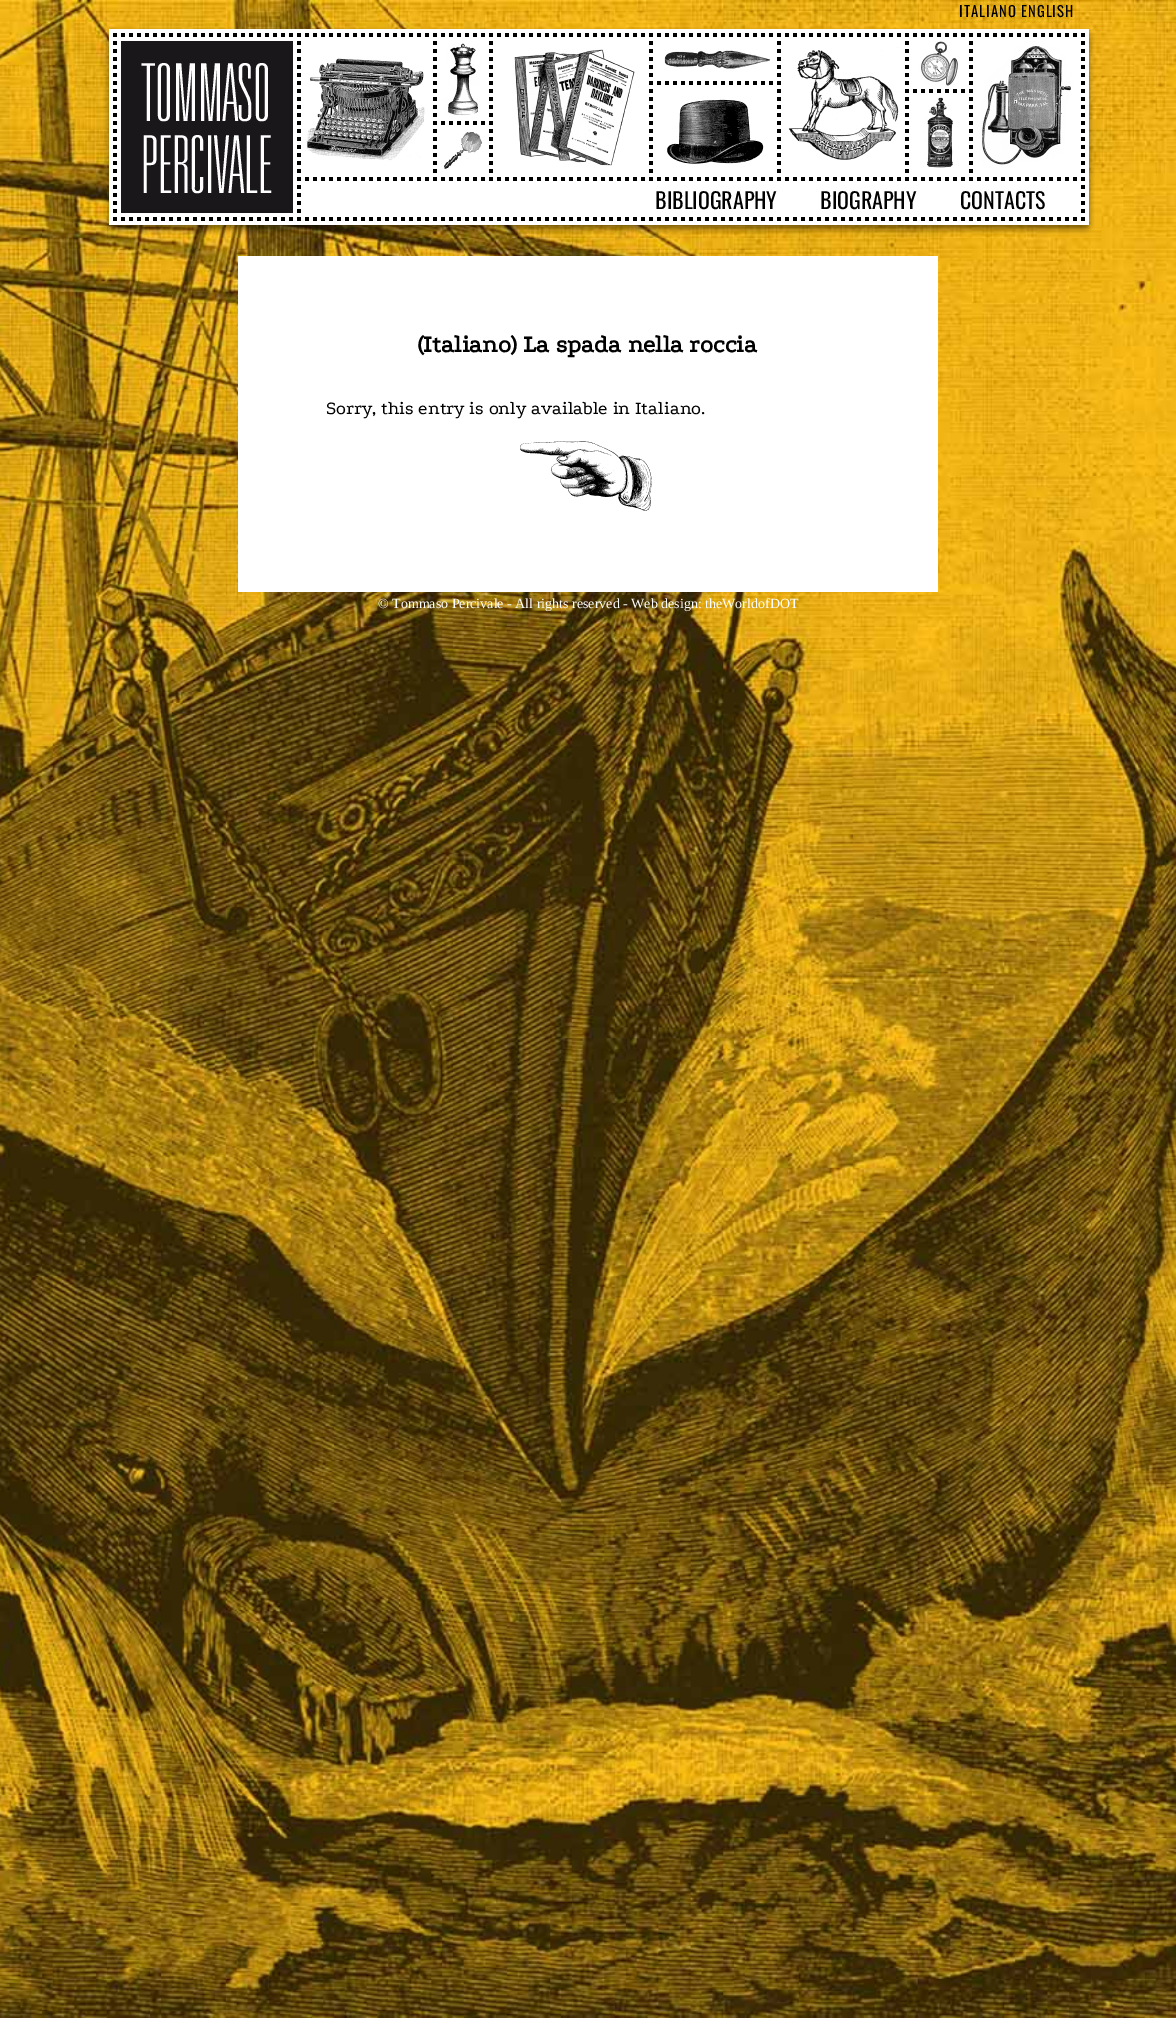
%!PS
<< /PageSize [1176 2018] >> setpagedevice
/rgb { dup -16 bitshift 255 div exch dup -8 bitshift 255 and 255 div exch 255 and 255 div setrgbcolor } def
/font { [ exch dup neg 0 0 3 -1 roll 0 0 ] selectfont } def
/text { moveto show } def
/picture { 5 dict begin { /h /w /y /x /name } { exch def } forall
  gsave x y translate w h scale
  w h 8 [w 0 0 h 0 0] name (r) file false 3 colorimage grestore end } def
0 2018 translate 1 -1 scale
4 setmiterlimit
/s1 { /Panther-Regular 80 font 16#FFFFFF rgb } def
/s2 { /Oswald-Regular 22 font 16#000000 rgb } def
/s3 { /Podkova-Bold 25 font 16#000000 rgb } def
/s4 { /Podkova-Regular 19 font 16#000000 rgb } def
/s5 { /LiberationSerif-Regular 14 font 16#FFFFFF rgb } def
16#FFFFFF rgb
0 0 1176 2018 rectfill
(pic1.raw) 0 0 1176 2018 picture
/Oswald-Regular 14.75 font
16#000000 rgb
959 17 moveto 1 0 (ITALIANO ENGLISH) ashow
(pic2.raw) 103 27 992 208 picture
s1
(TOMMASO) 142 121 text
(PERCIVALE) 141 193 text
s2
(BIBLIOGRAPHY) 655 209 text
(BIOGRAPHY) 820 209 text
(CONTACTS) 960 209 text
16#FFFFFF rgb
238 256 700 336 rectfill
s3
(\(Italiano\) La spada nella roccia) 418 352 text
s4
(Sorry, this entry is only available in Italiano.) 326 414 text
(pic3.raw) 520 441 132 70 picture
s5
(© Tommaso Percivale - All rights reserved - Web design: theWorldofDOT) 378 608 text
showpage
